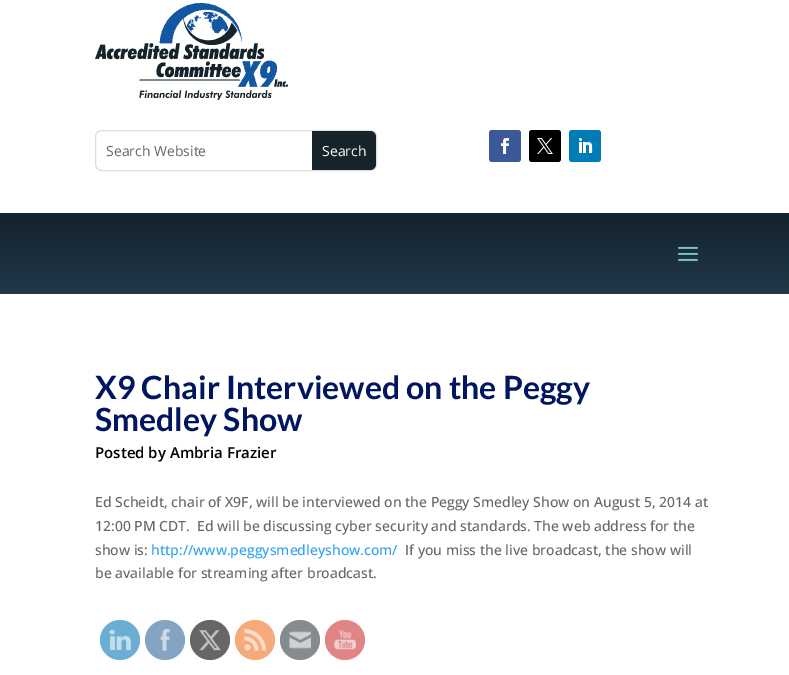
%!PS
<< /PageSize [789 675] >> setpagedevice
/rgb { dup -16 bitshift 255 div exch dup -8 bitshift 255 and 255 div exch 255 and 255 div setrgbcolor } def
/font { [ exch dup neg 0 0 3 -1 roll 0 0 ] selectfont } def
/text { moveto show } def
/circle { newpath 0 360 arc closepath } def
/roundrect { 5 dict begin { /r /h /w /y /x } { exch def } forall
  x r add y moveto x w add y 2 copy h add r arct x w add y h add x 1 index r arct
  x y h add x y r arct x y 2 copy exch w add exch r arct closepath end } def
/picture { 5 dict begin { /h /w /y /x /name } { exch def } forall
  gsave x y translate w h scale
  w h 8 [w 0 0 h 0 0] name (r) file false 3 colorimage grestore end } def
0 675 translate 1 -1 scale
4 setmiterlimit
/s1 { /OpenSans-Regular 14 font 16#666666 rgb } def
/s2 { /OpenSans-Regular 14 font 16#FFFFFF rgb } def
/s3 { /Lato-Bold 32 font 16#001660 rgb } def
/s4 { /OpenSans-SemiBold 15 font 16#000000 rgb } def
/s5 { /OpenSans-Medium 14 font 16#666666 rgb } def
/s6 { /OpenSans-Medium 14 font 16#2EA3F2 rgb } def
16#FFFFFF rgb
0 0 789 675 rectfill
(pic1.raw) 95 3 193 97 picture
16#DDDDDD rgb
95.5 130.5 281 40 6.5 roundrect stroke
s1
(Search Website) 106 156 text
16#17232B rgb
312 131 moveto 370 131 lineto 373.5 131 376 133.5 376 137 curveto 376 164 lineto 376 167.5 373.5 170 370 170 curveto 312 170 lineto closepath fill
s2
(Search) 322 156 text
16#3B5998 rgb
489 130 32 32 3 roundrect fill
(pic2.raw) 501 138 8 16 picture
16#000000 rgb
529 130 32 32 3 roundrect fill
(pic3.raw) 537 138 16 16 picture
16#007BB6 rgb
569 130 32 32 3 roundrect fill
(pic4.raw) 579 138 14 15 picture
gsave 0 213 moveto 789 213 lineto 789 294 lineto 0 294 lineto closepath clip newpath
<< /ShadingType 2 /ColorSpace /DeviceRGB /Coords [395 213 395 294] /Extend [true true] /Function << /FunctionType 2 /Domain [0 1] /C0 [0.078 0.137 0.176] /C1 [0.125 0.22 0.286] /N 1 >> >> shfill grestore
(pic5.raw) 678 246 20 15 picture
s3
(X9 Chair Interviewed on the Peggy) 95 399 text
(Smedley Show) 95 431 text
s4
(Posted by Ambria Frazier) 95 458 text
s5
(Ed Scheidt, chair of X9F, will be interviewed on the Peggy Smedley Show on August 5, 2014 at) 95 507 text
(12:00 PM CDT.) 95 531 text
(Ed will be discussing cyber security and standards. The web address for the) 197 531 text
(show is:) 95 555 text
s6
(http://www.peggysmedleyshow.com/) 151 555 text
s5
(If you miss the live broadcast, the show will) 405 555 text
(be available for streaming after broadcast.) 95 578 text
16#6BADD3 rgb
120 640 20 circle fill
(pic6.raw) 109 629 22 22 picture
16#85A3C2 rgb
165 640 20 circle fill
(pic7.raw) 160 629 10 22 picture
16#666666 rgb
210 640 20 circle fill
(pic8.raw) 199 630 22 21 picture
16#F7AA79 rgb
255 640 20 circle fill
(pic9.raw) 244 629 22 22 picture
16#858B8F rgb
300 640 20 circle fill
(pic10.raw) 289 631 22 18 picture
16#E08585 rgb
345 640 20 circle fill
(pic11.raw) 334 630 22 20 picture
showpage
